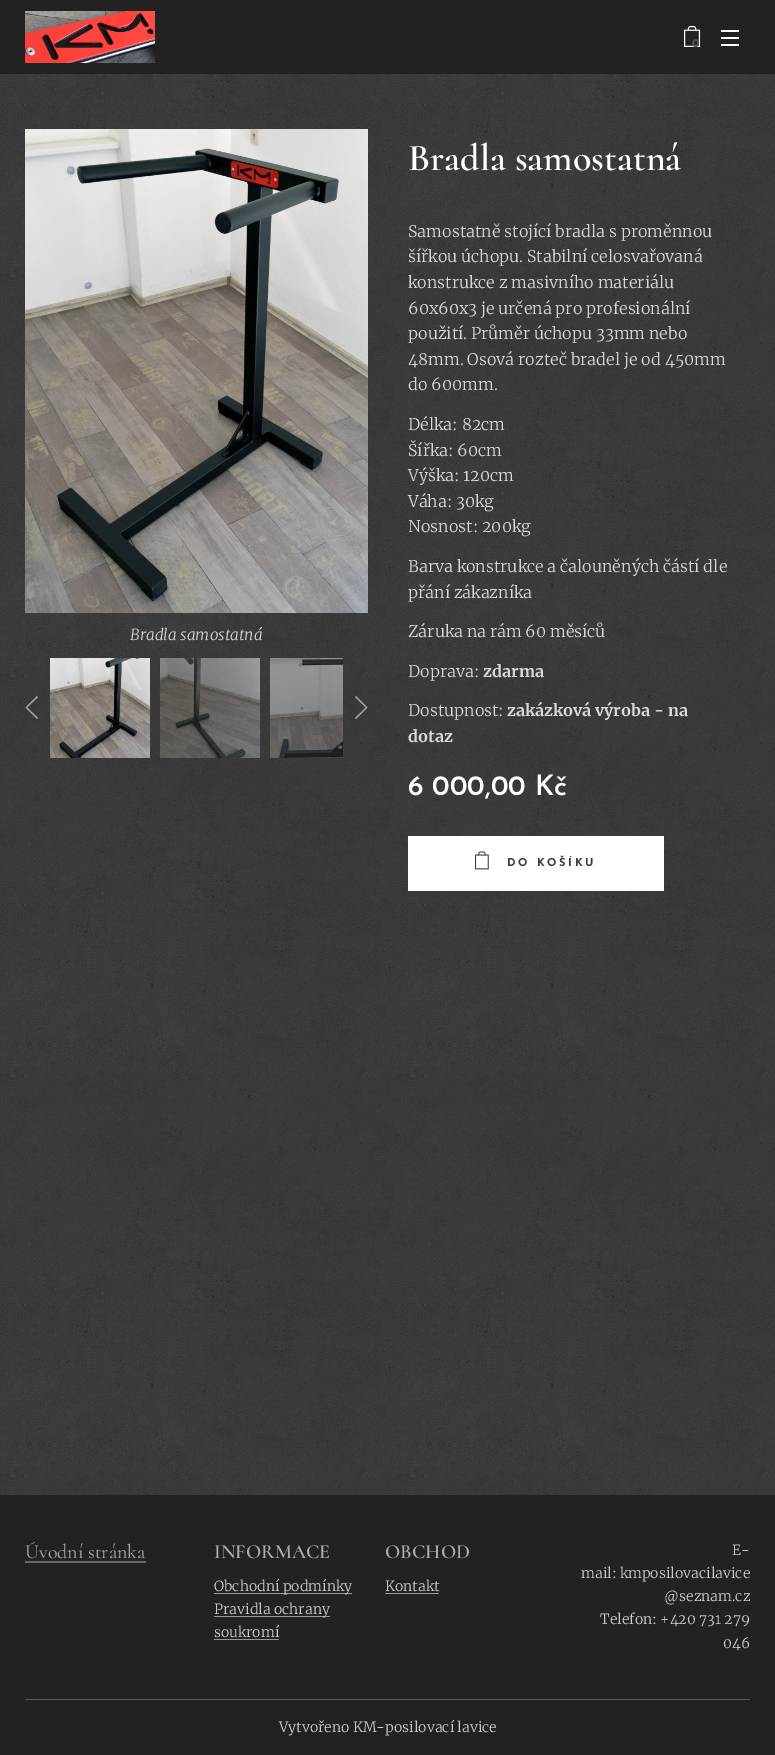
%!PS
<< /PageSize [775 1755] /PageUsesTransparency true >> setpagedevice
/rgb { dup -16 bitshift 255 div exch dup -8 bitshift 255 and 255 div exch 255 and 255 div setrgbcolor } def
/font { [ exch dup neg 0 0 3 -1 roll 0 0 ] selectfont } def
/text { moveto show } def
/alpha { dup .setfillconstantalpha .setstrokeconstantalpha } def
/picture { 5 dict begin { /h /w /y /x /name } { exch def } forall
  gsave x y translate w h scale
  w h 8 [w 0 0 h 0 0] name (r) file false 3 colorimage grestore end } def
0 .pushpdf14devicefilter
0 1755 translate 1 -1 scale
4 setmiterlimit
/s1 { /Montserrat-Bold 11 font 16#595959 rgb } def
/s2 { /Cormorant-SemiBold 38 font 16#FFFFFF rgb } def
/s3 { /Merriweather-LightItalic 15.25 font 16#D8D8D8 rgb } def
/s4 { /Merriweather-Light 16 font 16#D8D8D8 rgb } def
/s5 { /Merriweather-Bold 16 font 16#D8D8D8 rgb } def
/s6 { /JosefinSans-SemiBold 28 font 16#FFFFFF rgb } def
/s7 { /Cormorant-Regular 20 font 16#ACACAC rgb } def
/s8 { /Cormorant-SemiBold 20 font 16#ACACAC rgb } def
/s9 { /Merriweather-Light 14 font 16#CCCCCC rgb } def
16#222222 rgb
0 0 775 1755 rectfill
(pic1.raw) 25 11 130 52 picture
(pic2.raw) 684 25 17 22 picture
s1
(0) 692 47 text
16#FFFFFF rgb
721 37 18 2 rectfill
721 30 18 2 rectfill
721 44 18 2 rectfill
(pic3.raw) 0 74 775 1421 picture
s2
(Bradla samostatná) 408 170 text
(pic4.raw) 25 129 343 484 picture
s3
(Bradla samostatná) 130 640 text
0.56 alpha
16#FFFFFF rgb
37 719 moveto 38 718 lineto 27 707.5 lineto 38 697 lineto 37 696 lineto 25.5 707.5 lineto closepath fill
1 alpha
(pic5.raw) 50 658 100 100 picture
(pic6.raw) 160 658 100 100 picture
(pic7.raw) 270 658 73 100 picture
0.56 alpha
356 696 moveto 355 697 lineto 366 707.5 lineto 355 718 lineto 356 719 lineto 367.5 707.5 lineto closepath fill
1 alpha
s4
(Samostatně stojící bradla s proměnnou) 408 237 text
(šířkou úchopu. Stabilní celosvařovaná) 408 262 text
(konstrukce z masivního materiálu) 408 288 text
(60x60x3 je určená pro profesionální) 408 314 text
(použití. Průměr úchopu 33mm nebo) 408 339 text
(48mm. Osová rozteč bradel je od 450mm) 408 365 text
(do 600mm.) 408 390 text
(Délka: 82cm) 408 430 text
(Šířka: 60cm) 408 456 text
(Výška: 120cm) 408 481 text
(Váha: 30kg) 408 507 text
(Nosnost: 200kg) 408 532 text
(Barva konstrukce a čalouněných částí dle) 408 572 text
(přání zákazníka) 408 598 text
(Záruka na rám 60 měsíců) 408 637 text
(Doprava:) 408 677 text
s5
(zdarma) 483 677 text
s4
(Dostupnost:) 408 716 text
s5
(zakázková výroba - na) 507 716 text
(dotaz) 408 742 text
s6
(6 000,00 Kč) 408 795 text
408 836 256 55 rectfill
(pic8.raw) 475 851 14 19 picture
/JosefinSans-Bold 11 font
16#393939 rgb
507 866 moveto 2.75 0 (DO KOŠÍKU) ashow
s7
(Úvodní stránka) 25 1558 text
16#676767 rgb
25 1561 121 2 rectfill
s8
(INFORMACE) 214 1558 text
16#999999 rgb
214 1593 138 1 rectfill
s9
(Obchodní podmínky) 214 1591 text
16#999999 rgb
214 1616 116 1 rectfill
s9
(Pravidla ochrany) 214 1614 text
(soukromí) 214 1637 text
16#999999 rgb
214 1639 65 1 rectfill
s8
(OBCHOD) 385 1558 text
s9
(Kontakt) 385 1591 text
16#999999 rgb
385 1593 54 1 rectfill
s9
(E-) 732 1555 text
(mail: kmposilovacilavice) 581 1578 text
(@seznam.cz) 664 1601 text
(Telefon: +420 731 279) 600 1624 text
(046) 723 1648 text
16#5A5A5A rgb
25 1699 725 1 rectfill
s9
(Vytvořeno KM-posilovací lavice) 279 1732 text
.poppdf14devicefilter showpage
